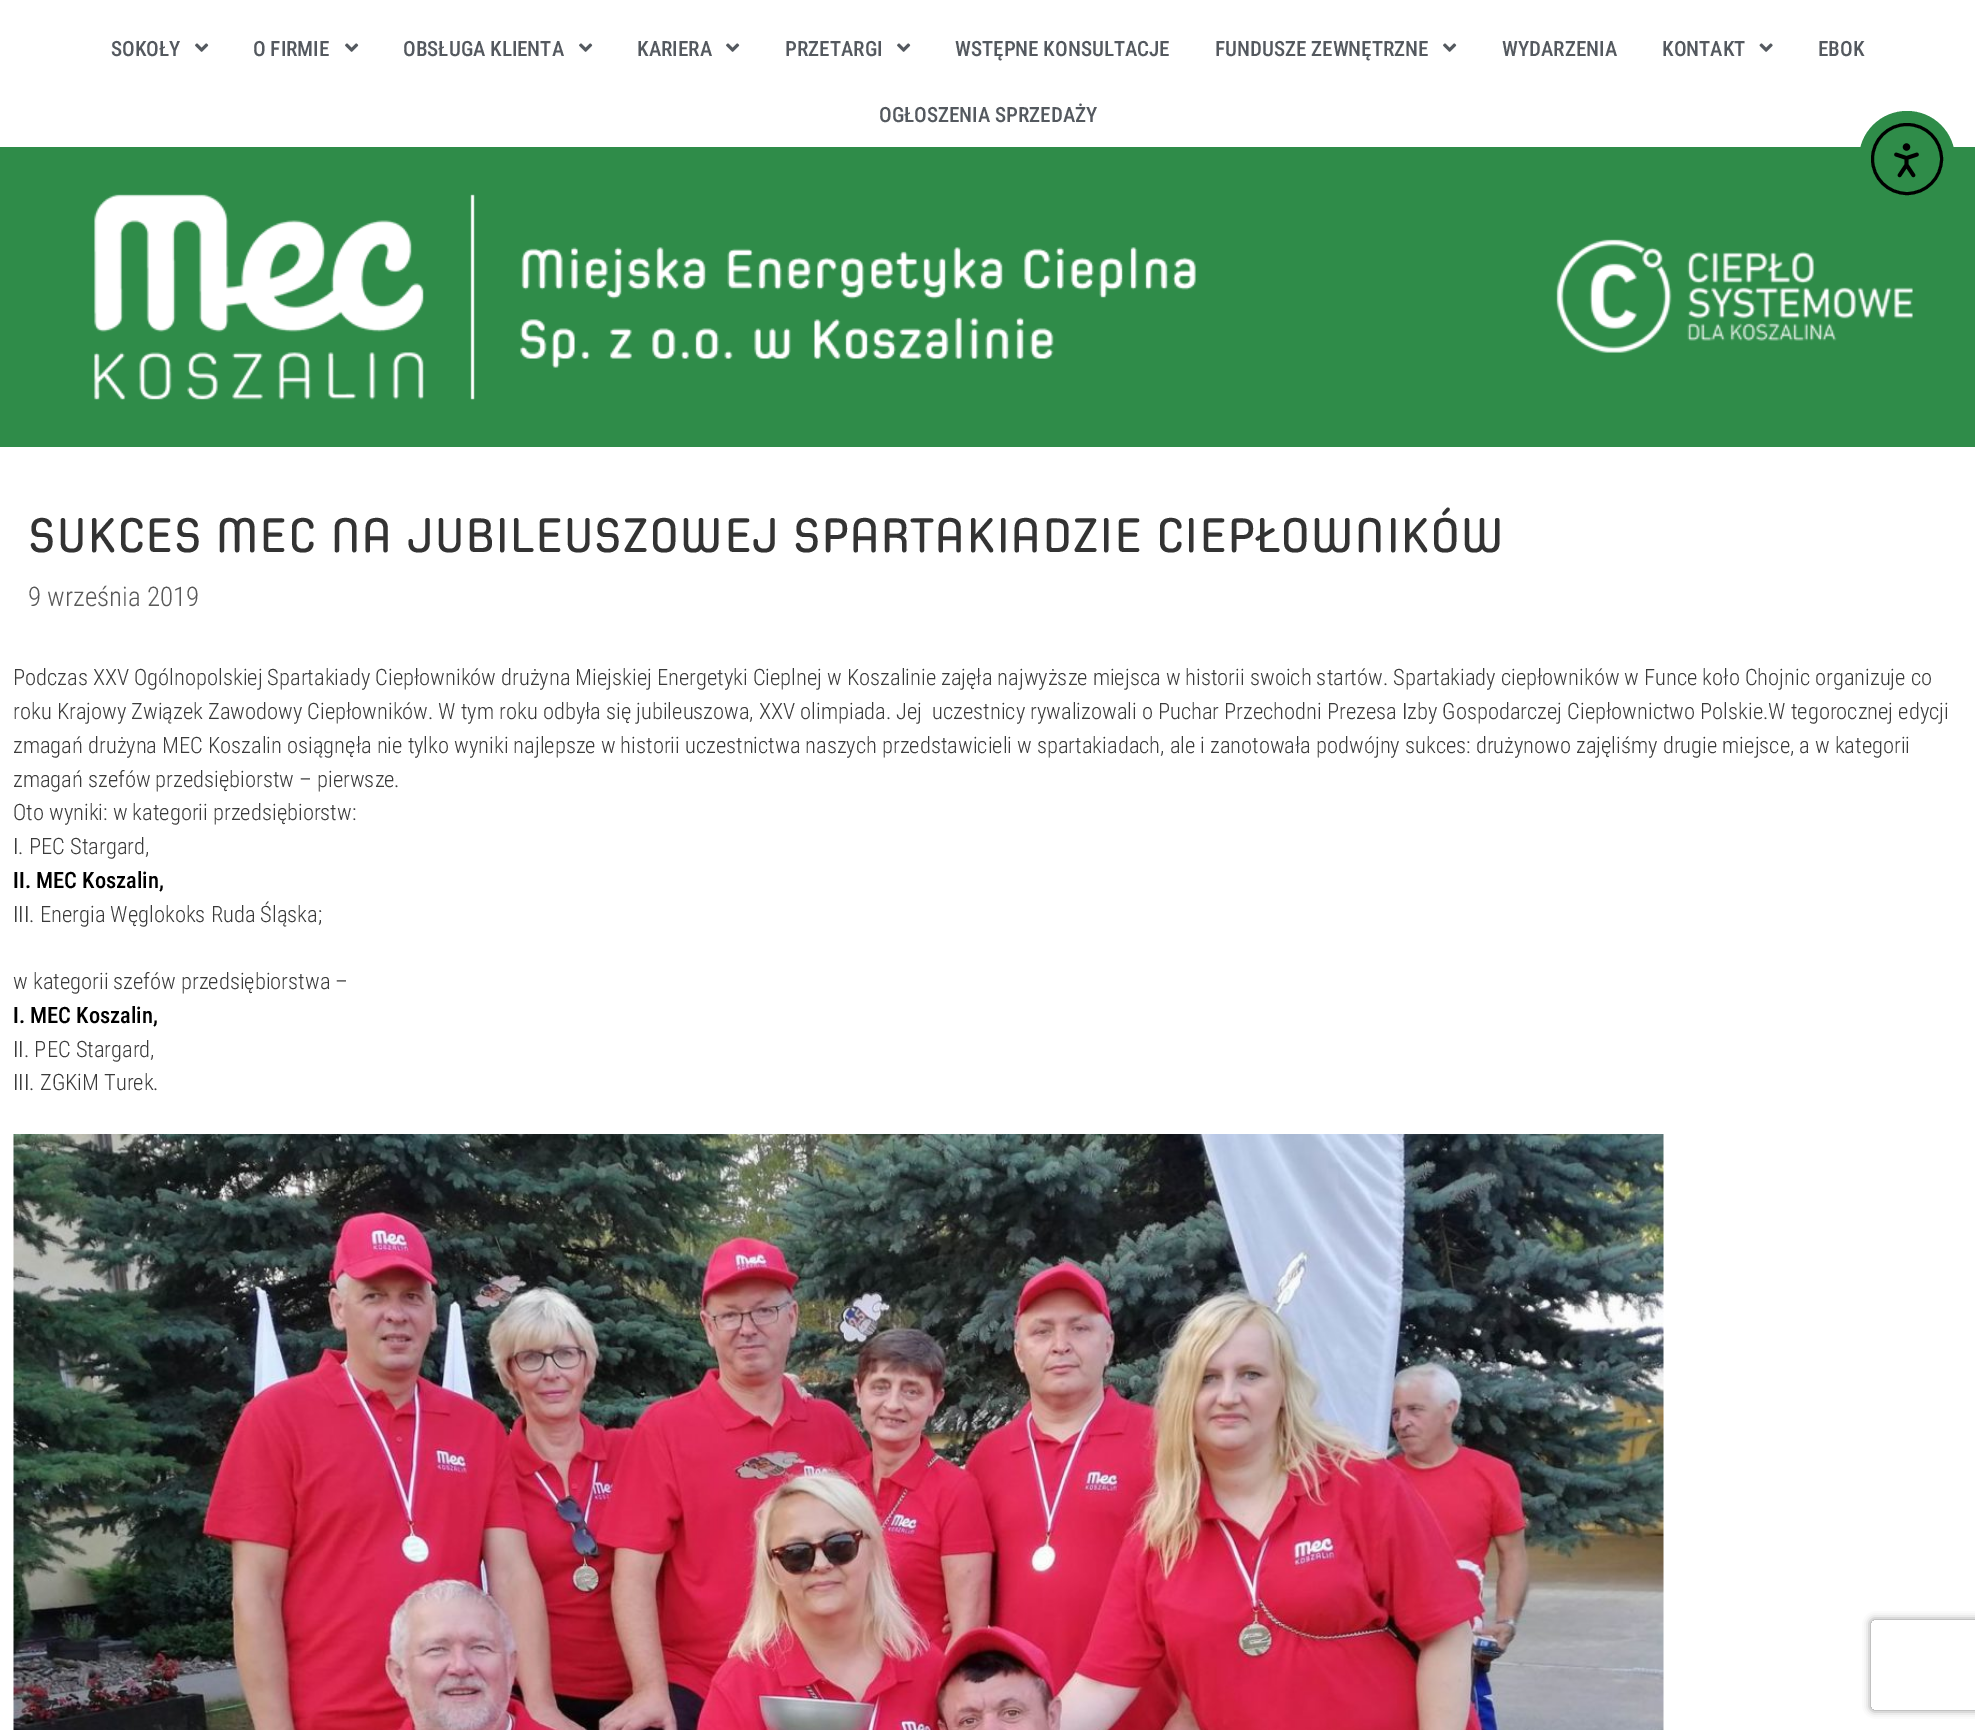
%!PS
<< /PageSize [1975 1730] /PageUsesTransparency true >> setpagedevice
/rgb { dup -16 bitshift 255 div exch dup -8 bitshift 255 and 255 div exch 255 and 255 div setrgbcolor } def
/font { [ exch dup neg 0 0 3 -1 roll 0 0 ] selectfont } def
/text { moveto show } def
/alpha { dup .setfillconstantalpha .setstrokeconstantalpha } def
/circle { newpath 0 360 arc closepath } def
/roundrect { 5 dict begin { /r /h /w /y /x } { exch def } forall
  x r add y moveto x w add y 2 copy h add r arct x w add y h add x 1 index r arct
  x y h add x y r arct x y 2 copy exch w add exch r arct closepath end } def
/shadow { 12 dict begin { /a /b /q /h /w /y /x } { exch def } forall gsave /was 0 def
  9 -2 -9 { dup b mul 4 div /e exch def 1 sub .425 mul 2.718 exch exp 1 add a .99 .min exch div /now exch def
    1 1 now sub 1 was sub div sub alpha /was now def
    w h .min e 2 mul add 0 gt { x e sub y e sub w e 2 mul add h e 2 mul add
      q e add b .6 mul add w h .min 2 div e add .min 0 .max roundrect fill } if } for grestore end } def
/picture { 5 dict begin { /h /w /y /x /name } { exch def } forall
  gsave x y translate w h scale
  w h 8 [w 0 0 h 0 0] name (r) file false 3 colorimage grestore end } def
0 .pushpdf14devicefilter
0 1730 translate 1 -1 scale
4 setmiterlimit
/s1 { /RobotoCondensed-Medium 21 font 16#54595F rgb } def
/s2 { /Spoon-SemiBold 49.5 font 16#333333 rgb } def
/s3 { /RobotoCondensed-Light 27 font 16#595959 rgb } def
/s4 { /RobotoCondensed-Light 22.5 font 16#3A3A3A rgb } def
/s5 { /RobotoCondensed-Medium 22.5 font 16#000000 rgb } def
16#FFFFFF rgb
0 0 1975 1730 rectfill
s1
(SOKOŁY) 111 56 text
(pic1.raw) 195 43 14 9 picture
(O FIRMIE) 253 56 text
(pic1.raw) 345 43 14 9 picture
(OBSŁUGA KLIENTA) 403 56 text
(pic1.raw) 579 43 14 9 picture
(KARIERA) 637 56 text
(pic1.raw) 726 43 14 9 picture
(PRZETARGI) 785 56 text
(pic1.raw) 897 43 14 9 picture
(WSTĘPNE KONSULTACJE) 955 56 text
(FUNDUSZE ZEWNĘTRZNE) 1215 56 text
(pic1.raw) 1443 43 14 9 picture
(WYDARZENIA) 1502 56 text
(KONTAKT) 1662 56 text
(pic2.raw) 1759 43 14 9 picture
(EBOK) 1818 56 text
(OGŁOSZENIA SPRZEDAŻY) 879 122 text
16#2F8C49 rgb
0 147 1975 300 rectfill
(pic3.raw) 94 194 1102 206 picture
(pic4.raw) 1556 239 357 114 picture
1907 159 48 circle fill
16#000000 rgb
3 setlinewidth
1907 159 34.5 circle stroke
(pic5.raw) 1894 143 25 35 picture
s2
(SUKCES MEC NA JUBILEUSZOWEJ SPARTAKIADZIE CIEPŁOWNIKÓW) 28 552 text
s3
(9 września 2019) 28 606 text
s4
(Podczas XXV Ogólnopolskiej Spartakiady Ciepłowników drużyna Miejskiej Energetyki Cieplnej w Koszalinie zajęła najwyższe miejsca w historii swoich startów. Spartakiady ciepłowników w Funce koło Chojnic organizuje co) 13 685 text
(roku Krajowy Związek Zawodowy Ciepłowników. W tym roku odbyła się jubileuszowa, XXV olimpiada. Jej  uczestnicy rywalizowali o Puchar Przechodni Prezesa Izby Gospodarczej Ciepłownictwo Polskie.W tegorocznej edycji) 13 719 text
(zmagań drużyna MEC Koszalin osiągnęła nie tylko wyniki najlepsze w historii uczestnictwa naszych przedstawicieli w spartakiadach, ale i zanotowała podwójny sukces: drużynowo zajęliśmy drugie miejsce, a w kategorii) 13 753 text
(zmagań szefów przedsiębiorstw – pierwsze.) 13 787 text
(Oto wyniki: w kategorii przedsiębiorstw:) 13 820 text
(I. PEC Stargard,) 13 854 text
s5
(II. MEC Koszalin,) 13 888 text
s4
(III. Energia Węglokoks Ruda Śląska;) 13 922 text
(w kategorii szefów przedsiębiorstwa –) 13 989 text
s5
(I. MEC Koszalin,) 13 1023 text
s4
(II. PEC Stargard,) 13 1057 text
(III. ZGKiM Turek.) 13 1090 text
(pic6.raw) 13 1134 1651 596 picture
gsave
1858 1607 moveto 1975 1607 lineto 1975 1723 lineto 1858 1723 lineto closepath 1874 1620 moveto 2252 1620 lineto 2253.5 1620 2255 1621.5 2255 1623 curveto 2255 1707 lineto 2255 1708.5 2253.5 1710 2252 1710 curveto 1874 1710 lineto 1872.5 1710 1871 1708.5 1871 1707 curveto 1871 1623 lineto 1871 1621.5 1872.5 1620 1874 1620 curveto closepath eoclip newpath
16#808080 rgb
1871 1620 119 90 3 4 1 shadow
grestore
.poppdf14devicefilter showpage
